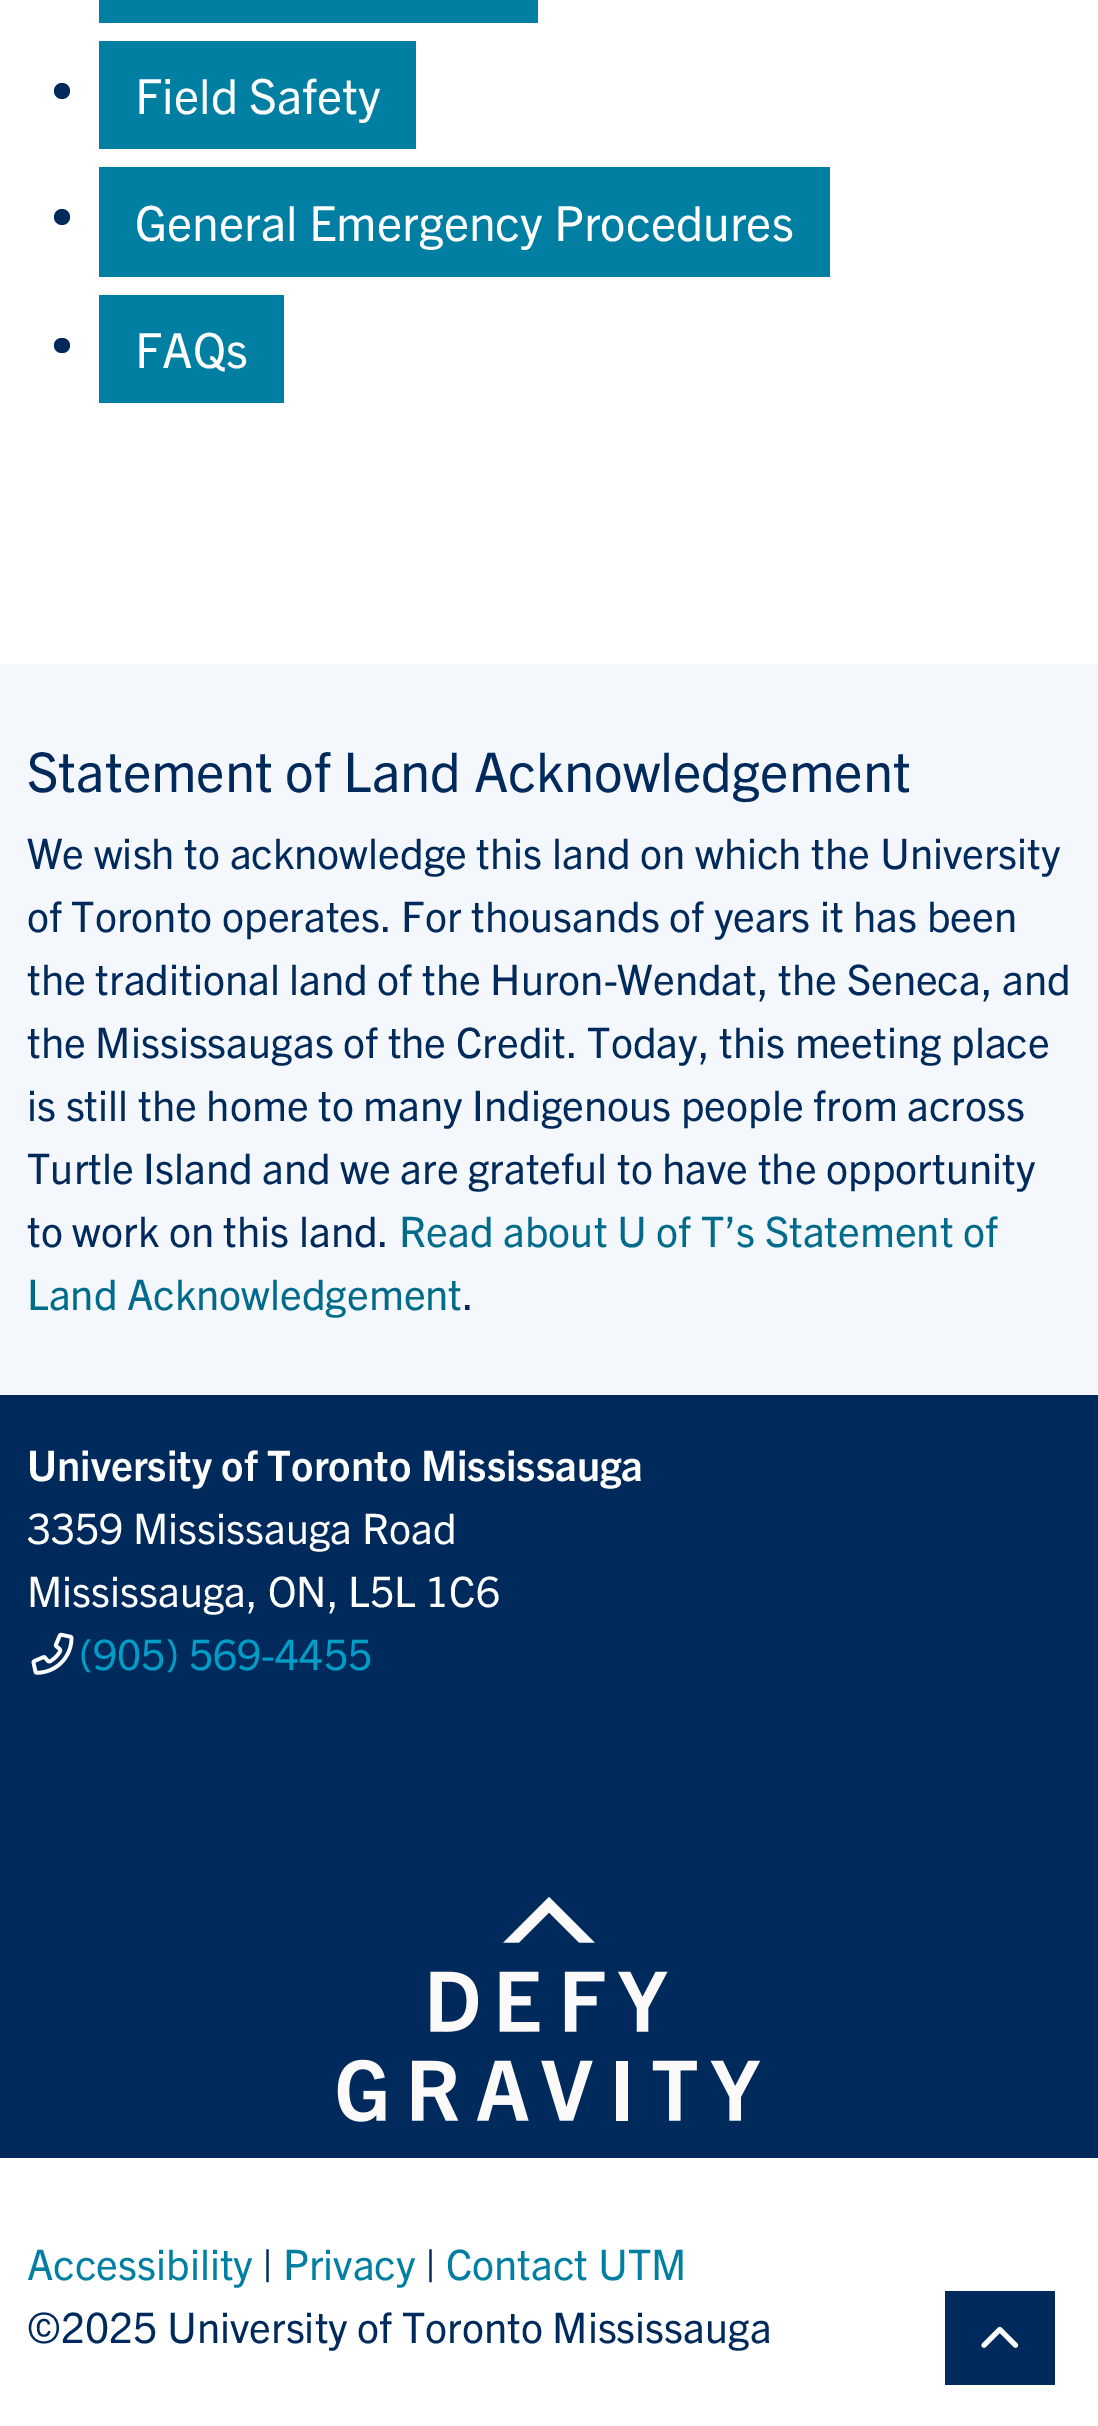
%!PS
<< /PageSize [1098 2426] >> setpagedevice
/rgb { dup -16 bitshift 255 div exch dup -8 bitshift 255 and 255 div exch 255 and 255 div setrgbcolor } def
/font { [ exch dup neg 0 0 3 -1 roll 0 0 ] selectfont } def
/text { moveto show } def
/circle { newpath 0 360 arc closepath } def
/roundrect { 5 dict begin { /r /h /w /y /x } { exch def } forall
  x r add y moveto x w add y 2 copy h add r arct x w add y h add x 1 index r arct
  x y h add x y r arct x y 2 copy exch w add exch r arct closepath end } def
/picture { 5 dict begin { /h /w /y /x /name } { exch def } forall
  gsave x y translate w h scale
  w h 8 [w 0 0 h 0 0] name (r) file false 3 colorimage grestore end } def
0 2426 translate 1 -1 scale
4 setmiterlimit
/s1 { /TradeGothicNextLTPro-Regular 48.5 font 16#FFFFFF rgb } def
/s2 { /TradeGothicNextLTPro-Regular 54.75 font 16#002A5C rgb } def
/s3 { /TradeGothicNextLTPro-Regular 42 font 16#002A5C rgb } def
/s4 { /TradeGothicNextLTPro-Regular 42 font 16#006B8A rgb } def
/s5 { /TradeGothicNextLTPro-Bold 42 font 16#FFFFFF rgb } def
/s6 { /TradeGothicNextLTPro-Regular 42 font 16#FFFFFF rgb } def
/s7 { /TradeGothicNextLTPro-Regular 42 font 16#009EC7 rgb } def
/s8 { /TradeGothicNextLTPro-Regular 42 font 16#007FA3 rgb } def
16#FFFFFF rgb
0 0 1098 2426 rectfill
16#007FA3 rgb
99 0 439 23 rectfill
16#002A5C rgb
62 91 8 circle fill
16#007FA3 rgb
99 41 317 108 rectfill
s1
(Field Safety) 135 114 text
16#002A5C rgb
62 217 8 circle fill
16#007FA3 rgb
99 167 731 110 rectfill
s1
(General Emergency Procedures) 135 241 text
16#002A5C rgb
54 338 16 15 7.5 roundrect fill
16#007FA3 rgb
99 295 185 108 rectfill
s1
(FAQs) 135 368 text
16#F4F7FB rgb
0 664 1098 731 rectfill
s2
(Statement of Land Acknowledgement) 27 792 text
s3
(We wish to acknowledge this land on which the University) 27 869 text
(of Toronto operates. For thousands of years it has been) 27 932 text
(the traditional land of the Huron-Wendat, the Seneca, and) 27 995 text
(the Mississaugas of the Credit. Today, this meeting place) 27 1058 text
(is still the home to many Indigenous people from across) 27 1121 text
(Turtle Island and we are grateful to have the opportunity) 27 1184 text
(to work on this land.) 27 1247 text
s4
(Read about U of T’s Statement of) 399 1247 text
(Land Acknowledgement) 27 1310 text
s3
(.) 462 1310 text
0 1395 1098 763 rectfill
s5
(University of Toronto Mississauga) 27 1481 text
s6
(3359 Mississauga Road) 27 1544 text
(Mississauga, ON, L5L 1C6) 27 1607 text
(pic1.raw) 31 1632 43 43 picture
s7
(\(905\) 569-4455) 79 1670 text
(pic2.raw) 337 1897 424 225 picture
s8
(Accessibility) 27 2280 text
s3
(|) 262 2280 text
s8
(Privacy) 283 2280 text
s3
(|) 425 2280 text
s8
(Contact UTM) 446 2280 text
s3
(©2025 University of Toronto Mississauga) 27 2343 text
945 2291 110 94 rectfill
(pic3.raw) 981 2326 38 22 picture
showpage
